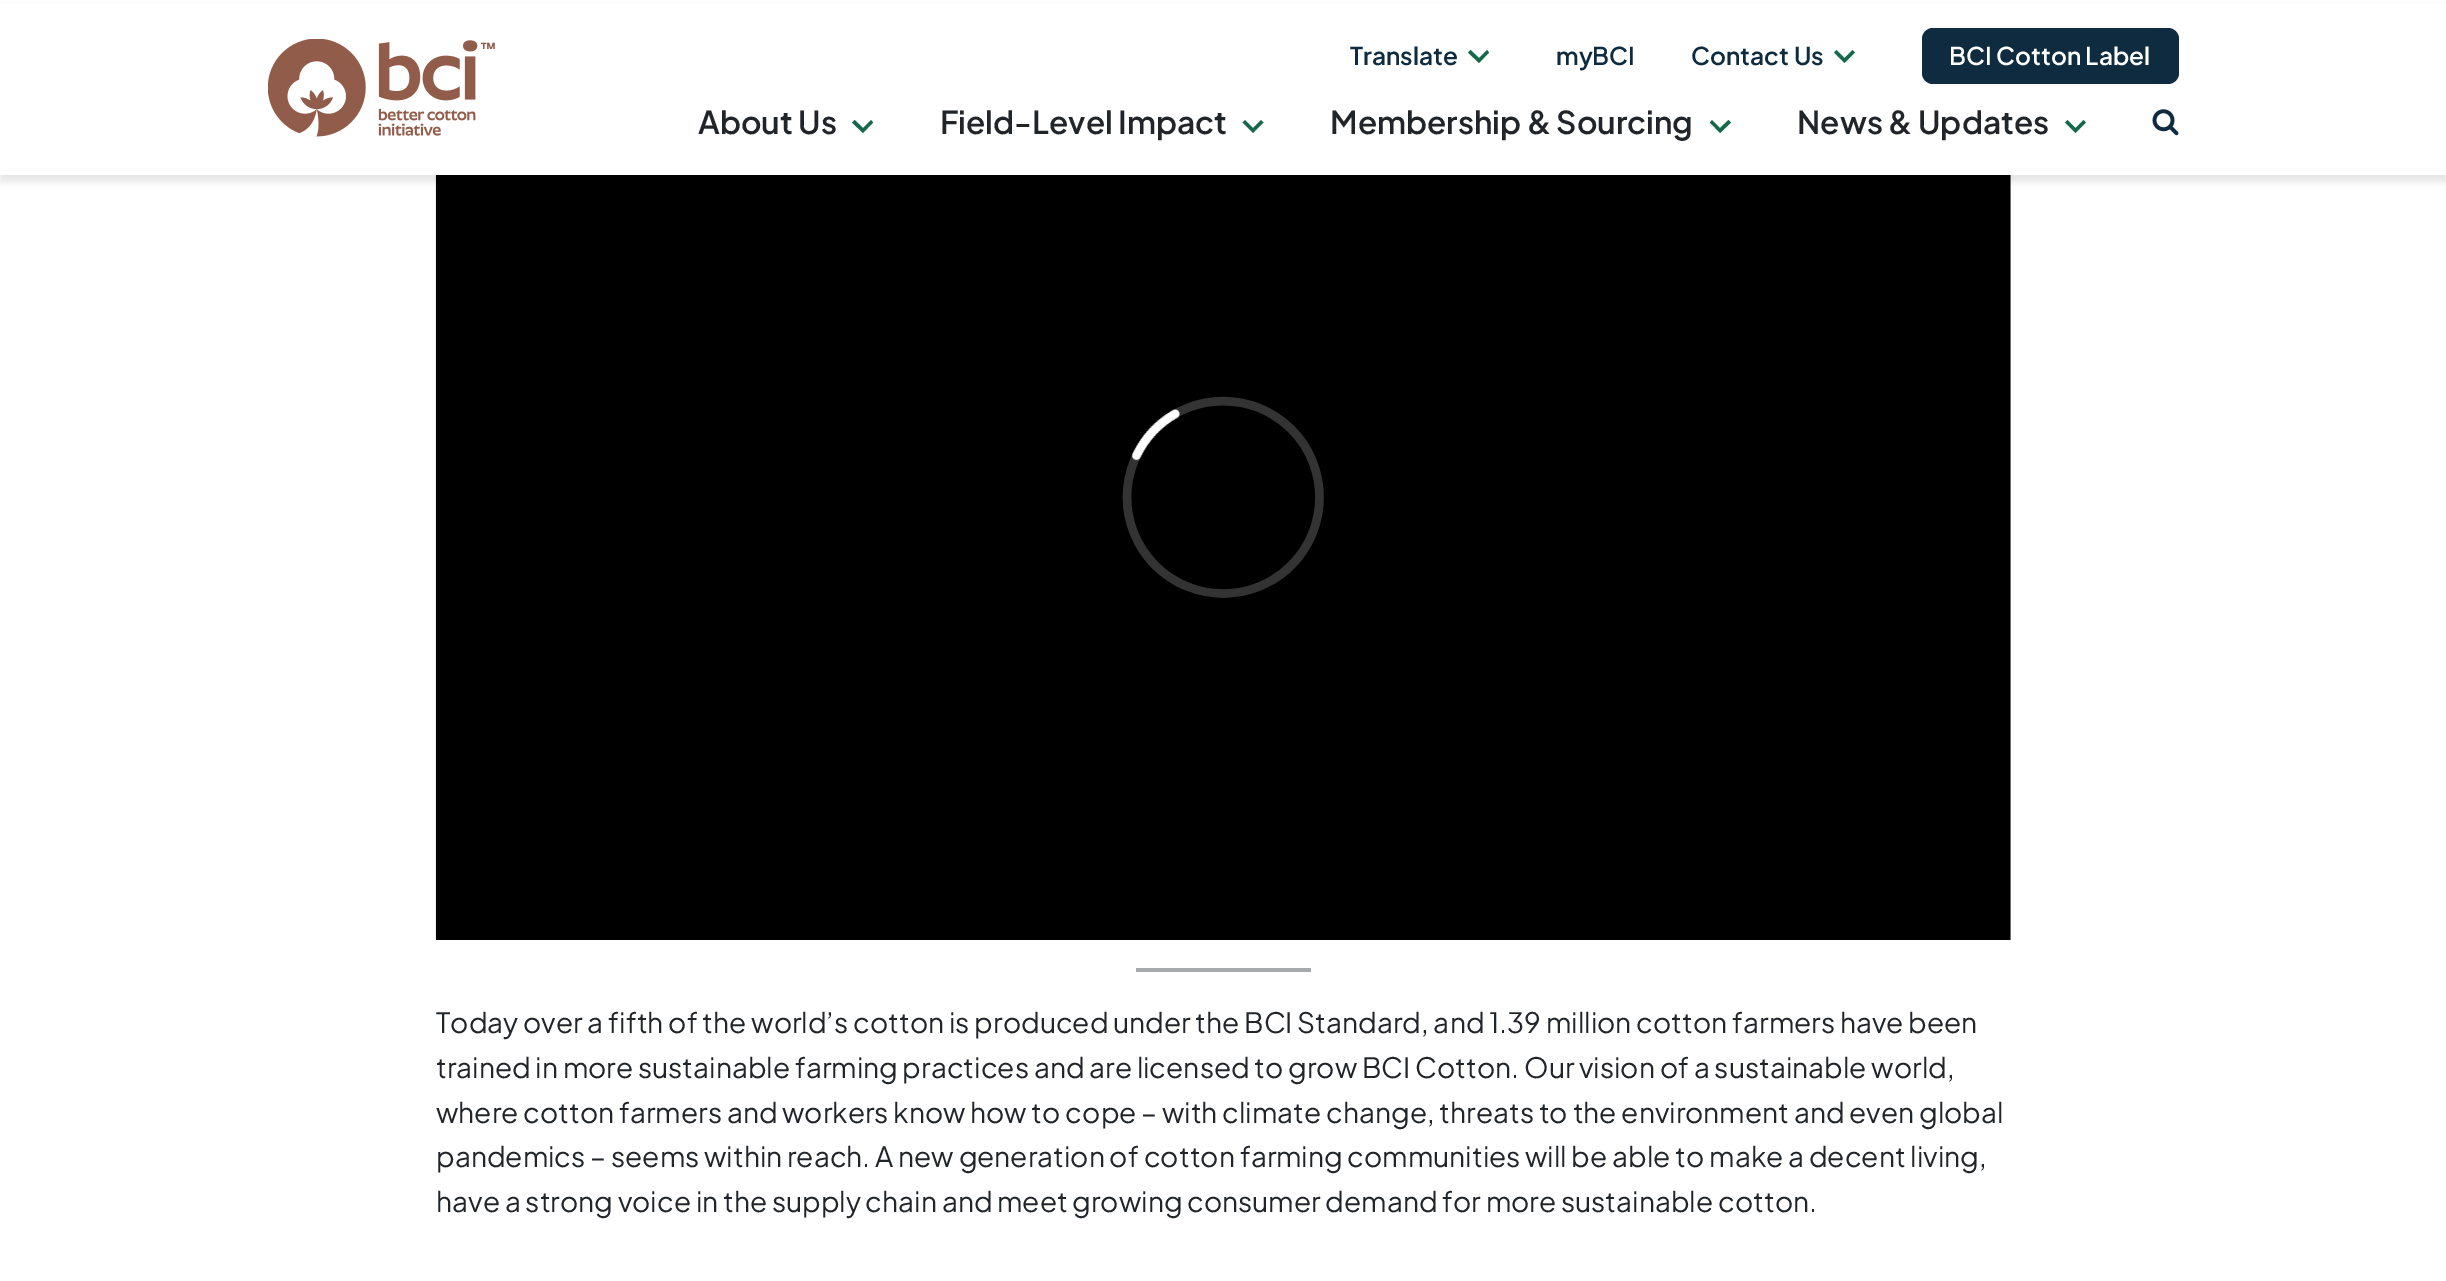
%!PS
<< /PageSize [2446 1281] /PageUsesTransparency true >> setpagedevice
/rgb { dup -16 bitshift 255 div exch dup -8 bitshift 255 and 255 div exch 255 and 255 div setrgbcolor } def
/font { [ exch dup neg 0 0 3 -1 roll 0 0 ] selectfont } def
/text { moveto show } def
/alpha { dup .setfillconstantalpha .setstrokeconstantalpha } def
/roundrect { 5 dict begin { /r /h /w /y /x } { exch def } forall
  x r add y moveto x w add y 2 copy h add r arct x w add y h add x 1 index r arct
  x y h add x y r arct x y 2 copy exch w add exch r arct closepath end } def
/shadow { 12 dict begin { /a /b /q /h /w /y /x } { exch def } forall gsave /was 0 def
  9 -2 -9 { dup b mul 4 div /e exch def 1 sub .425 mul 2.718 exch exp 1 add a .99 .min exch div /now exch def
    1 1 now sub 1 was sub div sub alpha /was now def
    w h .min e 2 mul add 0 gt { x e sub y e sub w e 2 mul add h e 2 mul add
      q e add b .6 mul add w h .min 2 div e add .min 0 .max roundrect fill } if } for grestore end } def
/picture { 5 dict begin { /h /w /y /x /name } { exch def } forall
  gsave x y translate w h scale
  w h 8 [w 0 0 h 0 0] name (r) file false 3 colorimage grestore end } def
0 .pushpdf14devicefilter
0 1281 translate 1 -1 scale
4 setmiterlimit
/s1 { /PlusJakartaSans-SemiBold 24.5 font 16#0F2B40 rgb } def
/s2 { /PlusJakartaSans-SemiBold 24.5 font 16#FFFFFF rgb } def
/s3 { /PlusJakartaSans-SemiBold 31.5 font 16#212529 rgb } def
/s4 { /PlusJakartaSans-Regular 28 font 16#212529 rgb } def
16#FFFFFF rgb
0 0 2446 1281 rectfill
(pic3.raw) 435 175 1576 765 picture
16#000000 rgb
0 7 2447 175 0 3.5 0.1 shadow
16#FFFFFF rgb
0 3 2446 172 rectfill
(pic1.raw) 268 39 227 98 picture
s1
(Translate) 1350 65 text
16#14694A rgb
1487 50 moveto 1479 58 lineto 1470.5 50 lineto 1468 52.5 lineto 1479 63 lineto 1489 52.5 lineto closepath eofill
s1
(myBCI) 1556 65 text
(Contact Us) 1691 65 text
16#14694A rgb
1852.5 50 moveto 1844.5 58 lineto 1836.5 50 lineto 1834 52.5 lineto 1844.5 63 lineto 1855 52.5 lineto closepath eofill
16#0F2B40 rgb
1922 28 257 56 11 roundrect fill
s2
(BCI Cotton Label) 1949 65 text
s3
(About Us) 698 134 text
16#14694A rgb
871 120 moveto 863 128 lineto 854.5 120 lineto 852 122.5 lineto 863 133 lineto 873 122.5 lineto closepath eofill
s3
(Field-Level Impact) 940 134 text
16#14694A rgb
1261 120 moveto 1253 128 lineto 1245 120 lineto 1242.5 122.5 lineto 1253 133 lineto 1263.5 122.5 lineto closepath eofill
s3
(Membership & Sourcing) 1330 134 text
16#14694A rgb
1728.5 120 moveto 1720 128 lineto 1712 120 lineto 1710 122.5 lineto 1720 133 lineto 1731 122.5 lineto closepath eofill
s3
(News & Updates) 1797 134 text
16#14694A rgb
2083.5 120 moveto 2075.5 128 lineto 2067.5 120 lineto 2065 122.5 lineto 2075.5 133 lineto 2086 122.5 lineto closepath eofill
(pic2.raw) 2152 109 27 27 picture
16#A6A8A9 rgb
1136 968 175 4 rectfill
s4
(Today over a fifth of the world’s cotton is produced under the BCI Standard, and 1.39 million cotton farmers have been) 436 1033 text
(trained in more sustainable farming practices and are licensed to grow BCI Cotton. Our vision of a sustainable world,) 436 1078 text
(where cotton farmers and workers know how to cope – with climate change, threats to the environment and even global) 436 1123 text
(pandemics – seems within reach. A new generation of cotton farming communities will be able to make a decent living,) 436 1167 text
(have a strong voice in the supply chain and meet growing consumer demand for more sustainable cotton.) 436 1212 text
.poppdf14devicefilter showpage
